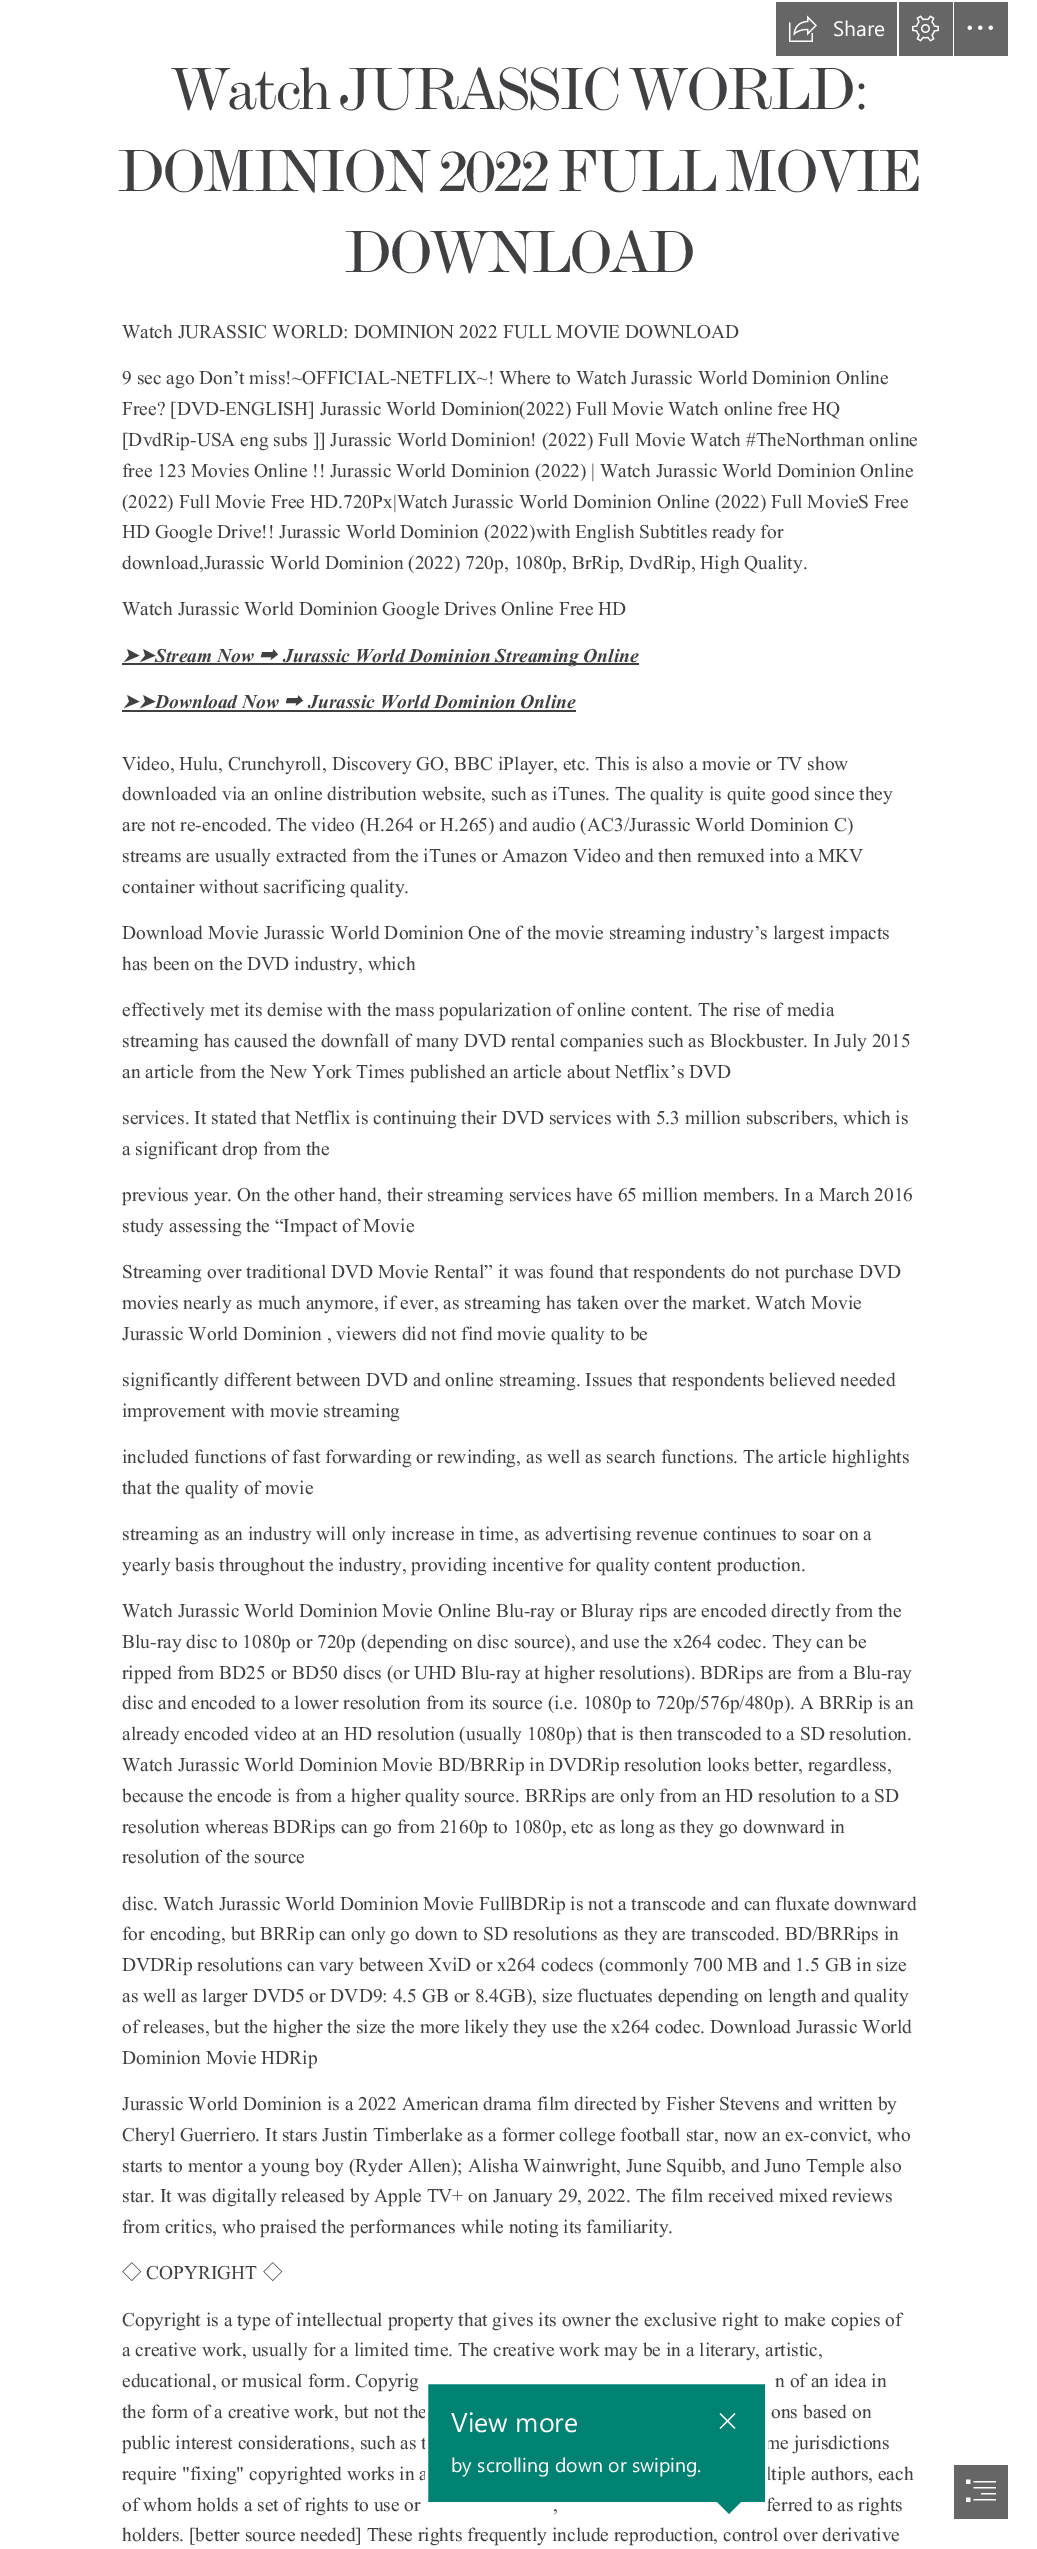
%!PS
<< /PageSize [1037 2549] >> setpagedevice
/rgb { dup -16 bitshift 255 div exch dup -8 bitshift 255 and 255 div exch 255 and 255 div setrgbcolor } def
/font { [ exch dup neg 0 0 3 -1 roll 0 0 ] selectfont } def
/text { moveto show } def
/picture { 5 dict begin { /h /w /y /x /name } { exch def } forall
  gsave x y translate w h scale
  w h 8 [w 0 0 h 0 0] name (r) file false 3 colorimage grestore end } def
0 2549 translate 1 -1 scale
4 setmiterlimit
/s1 { /SegoeUI-Regular 21 font 16#FFFFFF rgb } def
/s2 { /TimesNewRoman-Regular 19.45 font 16#403F41 rgb } def
/s3 { /DejaVuSans-BoldItalic 19.45 font 16#403F41 rgb } def
/s4 { /TimesNewRoman-BoldItalic 19.45 font 16#403F41 rgb } def
/s5 { /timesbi-SemiBoldItalic 19.45 font 16#403F41 rgb } def
/s6 { /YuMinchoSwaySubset-Regular 19.45 font 16#403F41 rgb } def
/s7 { /SegoeUI-Regular 27 font 16#FFFFFF rgb } def
/s8 { /SegoeUI-Regular 19.5 font 16#FFFFFF rgb } def
16#FFFFFF rgb
0 0 1037 2549 rectfill
16#666666 rgb
776 2 121 54 rectfill
(pic1.raw) 789 15 28 27 picture
s1
(Share) 833 36 text
16#666666 rgb
899 2 54 54 rectfill
(pic2.raw) 912 15 27 27 picture
954 2 54 54 rectfill
(pic3.raw) 967 25 26 5 picture
/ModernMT-Regular 60.75 font
16#403F41 rgb
170 109 moveto -3.6 0 (Watch JURASSIC WORLD:) ashow
117 191 moveto -3.6 0 (DOMINION 2022 FULL MOVIE) ashow
344 272 moveto -3.6 0 (DOWNLOAD) ashow
s2
(Watch JURASSIC WORLD: DOMINION 2022 FULL MOVIE DOWNLOAD) 122 338 text
(9 sec ago Don’t miss!~OFFICIAL-NETFLIX~! Where to Watch Jurassic World Dominion Online) 122 384 text
(Free? [DVD-ENGLISH] Jurassic World Dominion\(2022\) Full Movie Watch online free HQ) 122 415 text
([DvdRip-USA eng subs ]] Jurassic World Dominion! \(2022\) Full Movie Watch #TheNorthman online) 122 446 text
(free 123 Movies Online !! Jurassic World Dominion \(2022\) | Watch Jurassic World Dominion Online) 122 477 text
(\(2022\) Full Movie Free HD.720Px|Watch Jurassic World Dominion Online \(2022\) Full MovieS Free) 122 508 text
(HD Google Drive!! Jurassic World Dominion \(2022\)with English Subtitles ready for) 122 538 text
(download,Jurassic World Dominion \(2022\) 720p, 1080p, BrRip, DvdRip, High Quality.) 122 569 text
(Watch Jurassic World Dominion Google Drives Online Free HD) 122 615 text
s3
(➤➤) 122 662 text
s4
(Stream Now) 155 662 text
s5
(➡) 258 662 text
122 663 517 2 rectfill
s4
(Jurassic World Dominion Streaming Online) 283 662 text
s3
(➤➤) 122 708 text
122 710 454 2 rectfill
s4
(Download Now) 155 708 text
s5
(➡) 283 708 text
s4
(Jurassic World Dominion Online) 308 708 text
s2
(Video, Hulu, Crunchyroll, Discovery GO, BBC iPlayer, etc. This is also a movie or TV show) 122 770 text
(downloaded via an online distribution website, such as iTunes. The quality is quite good since they) 122 800 text
(are not re-encoded. The video \(H.264 or H.265\) and audio \(AC3/Jurassic World Dominion C\)) 122 831 text
(streams are usually extracted from the iTunes or Amazon Video and then remuxed into a MKV) 122 862 text
(container without sacrificing quality.) 122 893 text
(Download Movie Jurassic World Dominion One of the movie streaming industry’s largest impacts) 122 939 text
(has been on the DVD industry, which) 122 970 text
(effectively met its demise with the mass popularization of online content. The rise of media) 122 1016 text
(streaming has caused the downfall of many DVD rental companies such as Blockbuster. In July 2015) 122 1047 text
(an article from the New York Times published an article about Netflix’s DVD) 122 1078 text
(services. It stated that Netflix is continuing their DVD services with 5.3 million subscribers, which is) 122 1124 text
(a significant drop from the) 122 1155 text
(previous year. On the other hand, their streaming services have 65 million members. In a March 2016) 122 1201 text
(study assessing the “Impact of Movie) 122 1232 text
(Streaming over traditional DVD Movie Rental” it was found that respondents do not purchase DVD) 122 1278 text
(movies nearly as much anymore, if ever, as streaming has taken over the market. Watch Movie) 122 1309 text
(Jurassic World Dominion , viewers did not find movie quality to be) 122 1340 text
(significantly different between DVD and online streaming. Issues that respondents believed needed) 122 1386 text
(improvement with movie streaming) 122 1417 text
(included functions of fast forwarding or rewinding, as well as search functions. The article highlights) 122 1463 text
(that the quality of movie) 122 1494 text
(streaming as an industry will only increase in time, as advertising revenue continues to soar on a) 122 1540 text
(yearly basis throughout the industry, providing incentive for quality content production.) 122 1571 text
(Watch Jurassic World Dominion Movie Online Blu-ray or Bluray rips are encoded directly from the) 122 1617 text
(Blu-ray disc to 1080p or 720p \(depending on disc source\), and use the x264 codec. They can be) 122 1648 text
(ripped from BD25 or BD50 discs \(or UHD Blu-ray at higher resolutions\). BDRips are from a Blu-ray) 122 1679 text
(disc and encoded to a lower resolution from its source \(i.e. 1080p to 720p/576p/480p\). A BRRip is an) 122 1709 text
(already encoded video at an HD resolution \(usually 1080p\) that is then transcoded to a SD resolution.) 122 1740 text
(Watch Jurassic World Dominion Movie BD/BRRip in DVDRip resolution looks better, regardless,) 122 1771 text
(because the encode is from a higher quality source. BRRips are only from an HD resolution to a SD) 122 1802 text
(resolution whereas BDRips can go from 2160p to 1080p, etc as long as they go downward in) 122 1833 text
(resolution of the source) 122 1863 text
(disc. Watch Jurassic World Dominion Movie FullBDRip is not a transcode and can fluxate downward) 122 1910 text
(for encoding, but BRRip can only go down to SD resolutions as they are transcoded. BD/BRRips in) 122 1940 text
(DVDRip resolutions can vary between XviD or x264 codecs \(commonly 700 MB and 1.5 GB in size) 122 1971 text
(as well as larger DVD5 or DVD9: 4.5 GB or 8.4GB\), size fluctuates depending on length and quality) 122 2002 text
(of releases, but the higher the size the more likely they use the x264 codec. Download Jurassic World) 122 2033 text
(Dominion Movie HDRip) 122 2064 text
(Jurassic World Dominion is a 2022 American drama film directed by Fisher Stevens and written by) 122 2110 text
(Cheryl Guerriero. It stars Justin Timberlake as a former college football star, now an ex-convict, who) 122 2141 text
(starts to mentor a young boy \(Ryder Allen\); Alisha Wainwright, June Squibb, and Juno Temple also) 122 2172 text
(star. It was digitally released by Apple TV+ on January 29, 2022. The film received mixed reviews) 122 2202 text
(from critics, who praised the performances while noting its familiarity.) 122 2233 text
s6
(◇) 122 2279 text
s2
(COPYRIGHT) 146 2279 text
s6
(◇) 263 2279 text
s2
(Copyright is a type of intellectual property that gives its owner the exclusive right to make copies of) 122 2326 text
(a creative work, usually for a limited time. The creative work may be in a literary, artistic,) 122 2356 text
(educational, or musical form. Copyrig) 122 2387 text
(n of an idea in) 775 2387 text
(the form of a creative work, but not the) 122 2418 text
(ons based on) 771 2418 text
(public interest considerations, such as t) 122 2449 text
(me jurisdictions) 765 2449 text
(require "fixing" copyrighted works in a) 122 2480 text
(ltiple authors, each) 766 2480 text
(of whom holds a set of rights to use or) 122 2511 text
(,) 553 2511 text
(ferred to as rights) 766 2511 text
(holders. [better source needed] These rights frequently include reproduction, control over derivative) 122 2541 text
16#008272 rgb
426.5 2382.5 moveto 766.5 2382.5 lineto 766.5 2503.5 lineto 426.5 2503.5 lineto closepath gsave fill grestore
16#FFFFFF rgb
3 setlinewidth
stroke
s7
(View more) 451 2432 text
s8
(by scrolling down or swiping.) 451 2472 text
(pic4.raw) 719 2413 17 16 picture
16#008272 rgb
717 2502 moveto 741 2502 lineto 729 2514 lineto closepath fill
16#666666 rgb
954 2465 54 54 rectfill
(pic5.raw) 966 2479 30 23 picture
showpage
